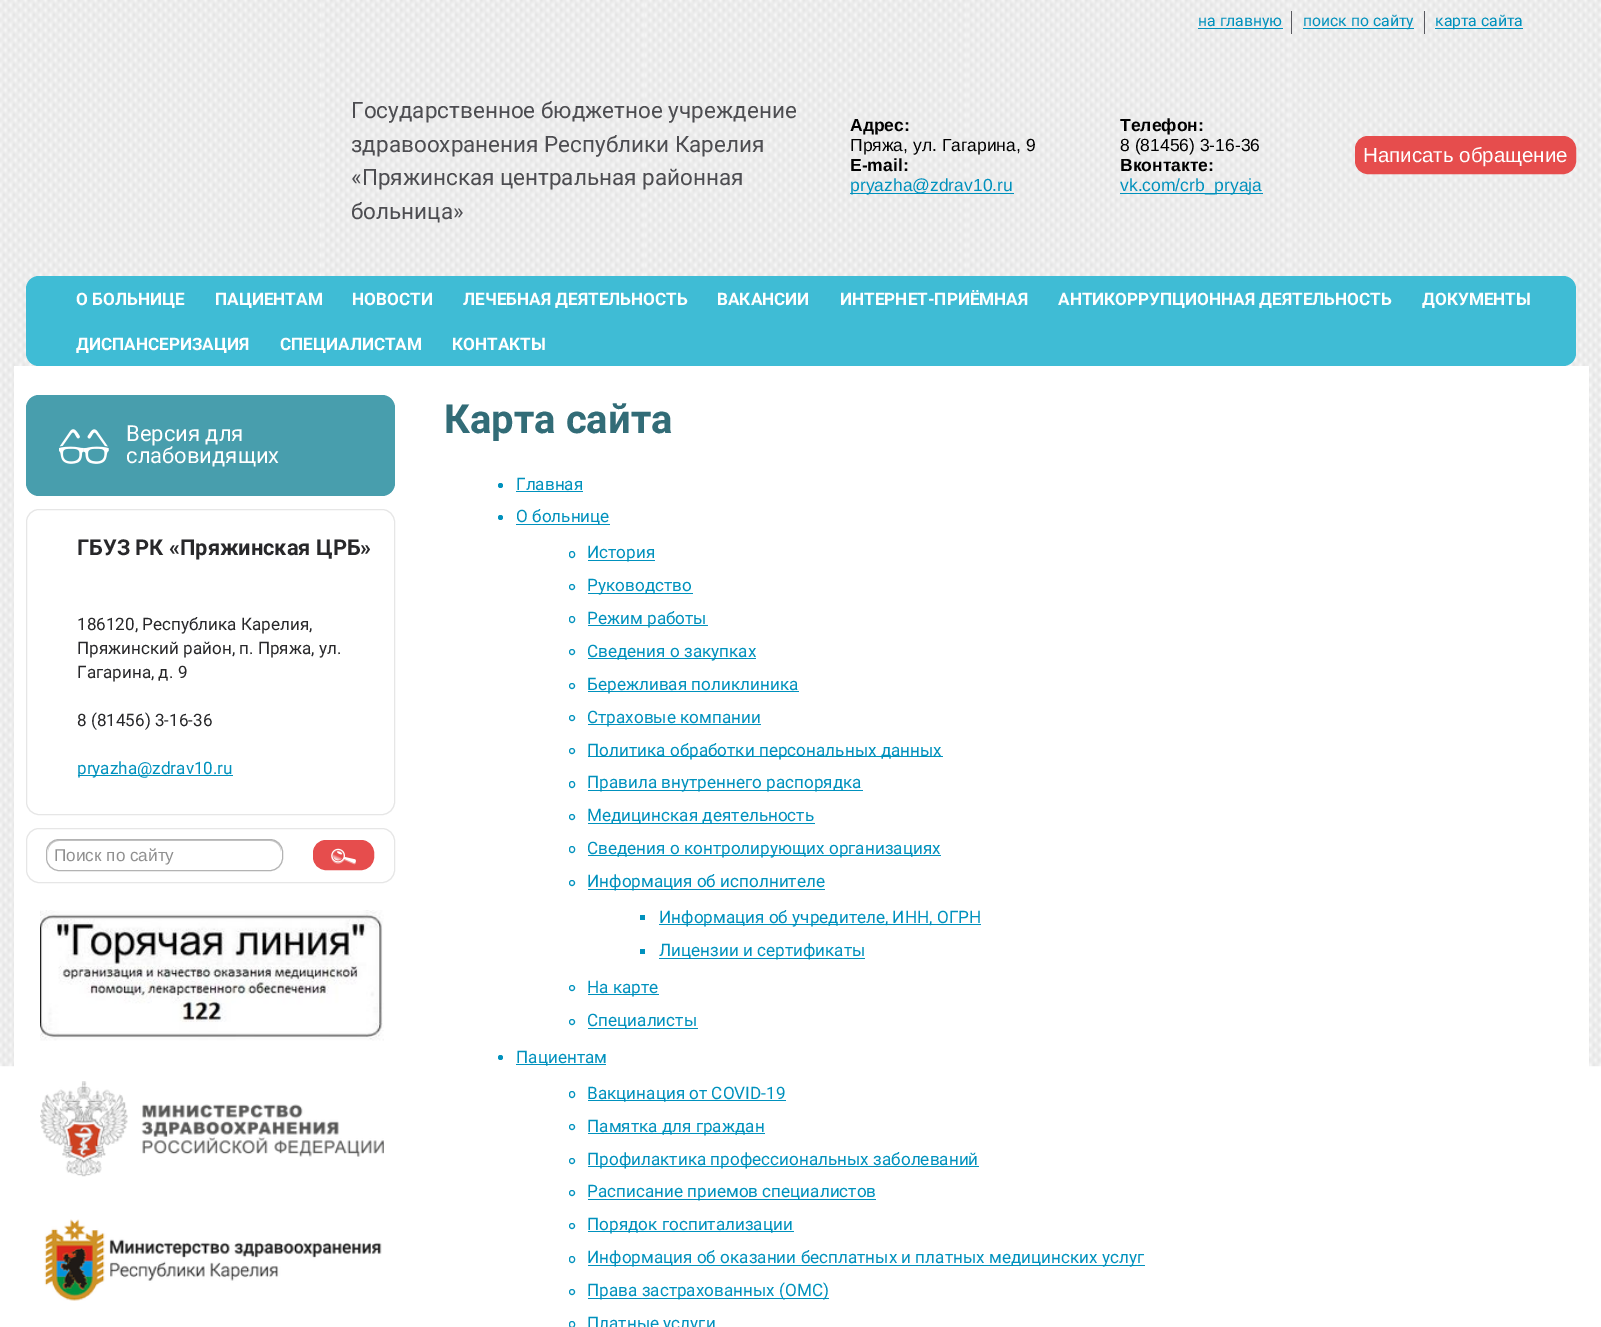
%!PS
<< /PageSize [1601 1327] >> setpagedevice
/rgb { dup -16 bitshift 255 div exch dup -8 bitshift 255 and 255 div exch 255 and 255 div setrgbcolor } def
/font { [ exch dup neg 0 0 3 -1 roll 0 0 ] selectfont } def
/text { moveto show } def
/circle { newpath 0 360 arc closepath } def
/roundrect { 5 dict begin { /r /h /w /y /x } { exch def } forall
  x r add y moveto x w add y 2 copy h add r arct x w add y h add x 1 index r arct
  x y h add x y r arct x y 2 copy exch w add exch r arct closepath end } def
/picture { 5 dict begin { /h /w /y /x /name } { exch def } forall
  gsave x y translate w h scale
  w h 8 [w 0 0 h 0 0] name (r) file false 3 colorimage grestore end } def
0 1327 translate 1 -1 scale
4 setmiterlimit
/s1 { /Roboto-Regular 15.75 font 16#0091BD rgb } def
/s2 { /Roboto-Regular 22.5 font 16#4D4D51 rgb } def
/s3 { /LiberationSans-Bold 17.5 font 16#000000 rgb } def
/s4 { /LiberationSans-Regular 17.5 font 16#000000 rgb } def
/s5 { /LiberationSans-Regular 17.5 font 16#0091BD rgb } def
/s6 { /LiberationSans-Regular 20.5 font 16#FFFFFF rgb } def
/s7 { /Roboto-Bold 17.15 font 16#FFFFFF rgb } def
/s8 { /Roboto-Regular 22 font 16#FFFFFF rgb } def
/s9 { /Roboto-Bold 21.8 font 16#28282A rgb } def
/s10 { /Roboto-Regular 17.1 font 16#28282A rgb } def
/s11 { /Roboto-Regular 17.1 font 16#0091BD rgb } def
/s12 { /LiberationSans-Regular 17.15 font 16#909090 rgb } def
/s13 { /Roboto-Bold 40 font 16#326C77 rgb } def
/s14 { /Roboto-Regular 17.15 font 16#0091BD rgb } def
16#FFFFFF rgb
0 0 1601 1327 rectfill
(pic1.raw) 0 0 1601 1067 picture
16#0091BD rgb
1198 28 85 1 rectfill
s1
(на главную) 1198 26 text
16#59595F rgb
1291 11 1 23 rectfill
16#0091BD rgb
1303 28 111 1 rectfill
(поиск по сайту) 1303 26 text
16#59595F rgb
1424 11 1 23 rectfill
16#0091BD rgb
1435 28 88 1 rectfill
(карта сайта) 1435 26 text
s2
(Государственное бюджетное учреждение) 351 118 text
(здравоохранения Республики Карелия) 351 152 text
(«Пряжинская центральная районная) 351 185 text
(больница») 351 219 text
s3
(Адрес:) 850 131 text
s4
(Пряжа, ул. Гагарина, 9) 850 151 text
s3
(E-mail:) 850 171 text
16#0091BD rgb
850 193 164 1 rectfill
s5
(pryazha@zdrav10.ru) 850 191 text
s3
(Телефон:) 1120 131 text
s4
(8 \(81456\) 3-16-36) 1120 151 text
s3
(Вконтакте:) 1120 171 text
16#0091BD rgb
1120 193 143 1 rectfill
s5
(vk.com/crb_pryaja) 1120 191 text
16#E64D4D rgb
1355.5 136.5 220 37 12.5 roundrect gsave fill grestore
stroke
s6
(Написать обращение) 1363 162 text
16#3FBCD5 rgb
26 276 1550 90 13 roundrect fill
s7
(О БОЛЬНИЦЕ) 76 305 text
(ПАЦИЕНТАМ) 215 305 text
(НОВОСТИ) 352 305 text
(ЛЕЧЕБНАЯ ДЕЯТЕЛЬНОСТЬ) 463 305 text
(ВАКАНСИИ) 717 305 text
(ИНТЕРНЕТ-ПРИЁМНАЯ) 840 305 text
(АНТИКОРРУПЦИОННАЯ ДЕЯТЕЛЬНОСТЬ) 1058 305 text
(ДОКУМЕНТЫ) 1422 305 text
(ДИСПАНСЕРИЗАЦИЯ) 76 350 text
(СПЕЦИАЛИСТАМ) 280 350 text
(КОНТАКТЫ) 452 350 text
14 366 1575 701 rectfill
16#489EAD rgb
26 395 369 101 13 roundrect fill
(pic2.raw) 59 429 50 35 picture
s8
(Версия для) 126 441 text
(слабовидящих) 126 463 text
16#E6E6E6 rgb
26.5 509.5 368 305 12.5 roundrect stroke
s9
(ГБУЗ РК «Пряжинская ЦРБ») 77 555 text
s10
(186120, Республика Карелия,) 77 630 text
(Пряжинский район, п. Пряжа, ул.) 77 654 text
(Гагарина, д. 9) 77 678 text
(8 \(81456\) 3-16-36) 77 726 text
16#0091BD rgb
78 775 155 1 rectfill
(pryazha@zdrav10.ru) 77 774 text
16#E6E6E6 rgb
26.5 828.5 368 54 12.5 roundrect stroke
16#C6C6C6 rgb
59 841 moveto 270 841 lineto 276 841 281 846 281 852 curveto 281 851 lineto 281 845 276 840 270 840 curveto 59 840 lineto 53 840 48 845 48 851 curveto 48 852 lineto 48 846 53 841 59 841 curveto closepath fill
16#B3B3B3 rgb
46.5 839.5 236 31 12.5 roundrect stroke
s12
(Поиск по сайту) 54 861 text
16#E64D4D rgb
313.5 840.5 60 29 12.5 roundrect gsave fill grestore
stroke
(pic3.raw) 331 848 25 17 picture
(pic4.raw) 40 910 344 131 picture
(pic5.raw) 40 1081 344 96 picture
(pic6.raw) 44 1219 338 82 picture
s13
(Карта сайта) 444 433 text
16#0091BD rgb
500.5 485.5 2.5 circle fill
s14
(Главная) 516 490 text
516 491 67 1 rectfill
500.5 517.5 2.5 circle fill
516 524 94 1 rectfill
(О больнице) 516 522 text
569.5 551.5 5 6 2.5 roundrect stroke
588 560 67 1 rectfill
(История) 587 558 text
572 587 2.5 circle stroke
588 593 105 1 rectfill
(Руководство) 587 591 text
569.5 616.5 5 6 2.5 roundrect stroke
588 625 120 1 rectfill
(Режим работы) 587 624 text
572 652 2.5 circle stroke
588 658 168 1 rectfill
(Сведения о закупках) 587 657 text
572 686 2.5 circle stroke
588 691 211 1 rectfill
(Бережливая поликлиника) 587 690 text
572 718 2.5 circle stroke
588 724 173 1 rectfill
(Страховые компании) 587 723 text
572 751 2.5 circle stroke
588 756 355 1 rectfill
(Политика обработки персональных данных) 587 756 text
569.5 781.5 5 6 2.5 roundrect stroke
588 790 275 1 rectfill
(Правила внутреннего распорядка) 587 788 text
572 817 2.5 circle stroke
588 823 227 1 rectfill
(Медицинская деятельность) 587 821 text
569.5 846.5 5 6 2.5 roundrect stroke
588 855 353 1 rectfill
(Сведения о контролирующих организациях) 587 854 text
572 883 2.5 circle stroke
588 889 237 1 rectfill
(Информация об исполнителе) 587 887 text
640 915 5 5 rectfill
659 924 322 1 rectfill
(Информация об учредителе, ИНН, ОГРН) 659 923 text
640 949 5 5 rectfill
659 958 206 1 rectfill
(Лицензии и сертификаты) 659 956 text
572 988 2.5 circle stroke
588 994 71 1 rectfill
(На карте) 587 993 text
572 1022 2.5 circle stroke
588 1028 110 1 rectfill
(Специалисты) 587 1026 text
500.5 1057.5 2.5 circle fill
516 1064 90 1 rectfill
(Пациентам) 516 1063 text
569.5 1091.5 5 6 2.5 roundrect stroke
588 1100 198 1 rectfill
(Вакцинация от COVID-19) 587 1099 text
572 1127 2.5 circle stroke
588 1133 177 1 rectfill
(Памятка для граждан) 587 1132 text
572 1161 2.5 circle stroke
588 1166 391 1 rectfill
(Профилактика профессиональных заболеваний) 587 1165 text
572 1193 2.5 circle stroke
588 1199 288 1 rectfill
(Расписание приемов специалистов) 587 1197 text
572 1226 2.5 circle stroke
588 1231 206 1 rectfill
(Порядок госпитализации) 587 1230 text
569.5 1256.5 5 6 2.5 roundrect stroke
588 1265 557 1 rectfill
(Информация об оказании бесплатных и платных медицинских услуг) 587 1263 text
572 1292 2.5 circle stroke
588 1298 241 1 rectfill
(Права застрахованных \(ОМС\)) 587 1296 text
569.5 1321.5 5 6 2.5 roundrect stroke
(Платные услуги) 587 1329 text
showpage
